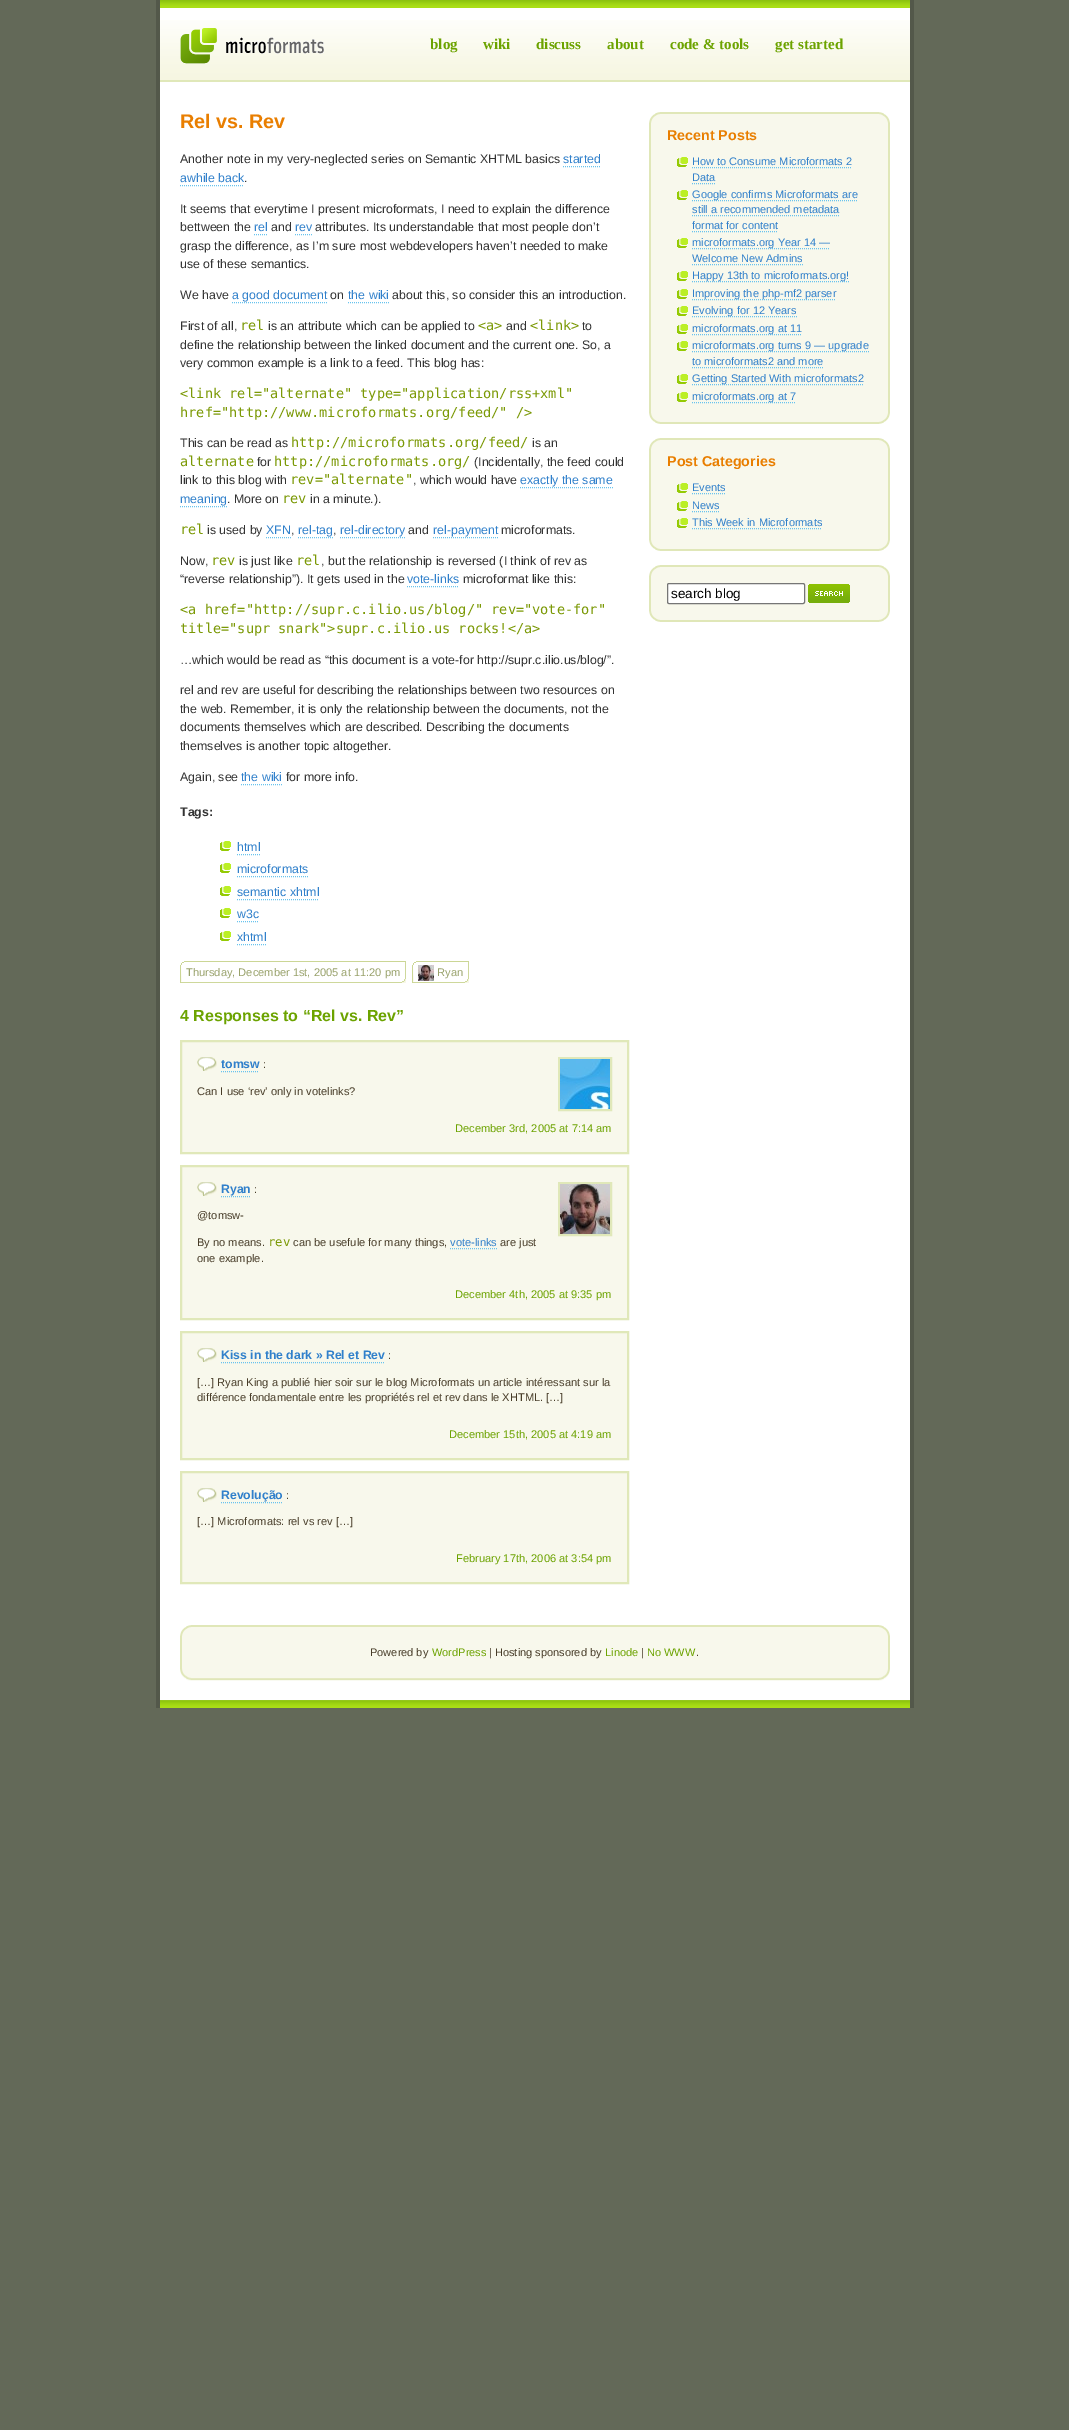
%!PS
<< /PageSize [1069 2430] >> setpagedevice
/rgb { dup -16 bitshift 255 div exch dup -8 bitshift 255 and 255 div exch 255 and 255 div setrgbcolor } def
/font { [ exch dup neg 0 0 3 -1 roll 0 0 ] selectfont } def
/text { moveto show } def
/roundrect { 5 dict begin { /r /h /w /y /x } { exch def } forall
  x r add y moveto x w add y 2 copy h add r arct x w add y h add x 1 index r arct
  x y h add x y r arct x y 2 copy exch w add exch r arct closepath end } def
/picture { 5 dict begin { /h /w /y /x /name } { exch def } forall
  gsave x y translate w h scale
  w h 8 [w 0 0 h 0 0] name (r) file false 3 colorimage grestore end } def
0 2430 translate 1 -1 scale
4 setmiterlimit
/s1 { /LiberationSerif-Bold 15 font 16#6CA300 rgb } def
/s2 { /LiberationSans-Bold 19.75 font 16#E97E00 rgb } def
/s3 { /LiberationSans-Regular 12.35 font 16#333333 rgb } def
/s4 { /LiberationSans-Regular 12.35 font 16#3080CB rgb } def
/s5 { /DejaVuSansMono-Regular 13.6 font 16#7B9905 rgb } def
/s6 { /LiberationSans-Bold 12.35 font 16#333333 rgb } def
/s7 { /LiberationSans-Regular 11.1 font 16#99A26B rgb } def
/s8 { /LiberationSans-Bold 16 font 16#6CA300 rgb } def
/s9 { /LiberationSans-Bold 12.25 font 16#3080CB rgb } def
/s10 { /LiberationSans-Regular 11.1 font 16#473C28 rgb } def
/s11 { /LiberationSans-Regular 11.1 font 16#6CA300 rgb } def
/s12 { /DejaVuSansMono-Regular 12.25 font 16#7B9905 rgb } def
/s13 { /LiberationSans-Regular 11.1 font 16#3080CB rgb } def
/s14 { /LiberationSans-Bold 14.25 font 16#E97E00 rgb } def
/s15 { /LiberationSans-Regular 11 font 16#3080CB rgb } def
/s16 { /LiberationSans-Regular 13.5 font 16#000000 rgb } def
/s17 { /LiberationSans-Regular 11 font 16#473C28 rgb } def
/s18 { /LiberationSans-Regular 11 font 16#6CA300 rgb } def
16#636958 rgb
0 0 1069 2430 rectfill
16#FFFFFF rgb
160 8 750 1617 rectfill
(pic1.raw) 160 0 750 8 picture
16#53584A rgb
910 0 4 1708 rectfill
156 0 4 1708 rectfill
(pic2.raw) 160 20 750 62 picture
(pic3.raw) 180 28 144 36 picture
s1
(blog) 430 49 text
(wiki) 483 49 text
(discuss) 536 49 text
(about) 607 49 text
(code & tools) 670 49 text
(get started) 775 49 text
s2
(Rel vs. Rev) 180 128 text
s3
(Another note in my very-neglected series on Semantic XHTML basics) 180 163 text
s4
(started) 563 163 text
16#68C3EE rgb
[1 1] 0 setdash
563 166.5 moveto 601 166.5 lineto stroke
s4
(awhile back) 180 182 text
16#68C3EE rgb
180 185.5 moveto 244 185.5 lineto stroke
s3
(.) 244 182 text
(It seems that everytime I present microformats, I need to explain the difference) 180 213 text
(bettween the) 180 231 text
s4
(rel) 254 231 text
16#68C3EE rgb
254 234.5 moveto 267 234.5 lineto stroke
s3
(and) 271 231 text
s4
(rev) 295 231 text
16#68C3EE rgb
295 234.5 moveto 312 234.5 lineto stroke
s3
(attributes. Its understandable that most people don’t) 315 231 text
(grasp the difference, as I’m sure most webdevelopers haven’t needed to make) 180 250 text
(use of these semantics.) 180 268 text
(We have) 180 299 text
s4
(a good document) 232 299 text
16#68C3EE rgb
232 302.5 moveto 327 302.5 lineto stroke
s3
(on) 330 299 text
s4
(the wiki) 348 299 text
16#68C3EE rgb
348 302.5 moveto 389 302.5 lineto stroke
s3
(about this, so consider this an introduction.) 392 299 text
(First of all,) 180 330 text
s5
(rel) 240 330 text
s3
(is an attribute which can be applied to) 268 330 text
s5
(<a>) 478 330 text
s3
(and) 506 330 text
s5
(<link>) 530 330 text
s3
(to) 582 330 text
(define the relationship between the linked document and the current one. So, a) 180 349 text
(very common example is a link to a feed. This blog has:) 180 367 text
s5
(<link rel="alternate" type="application/rss+xml") 180 398 text
(href="http://www.microformats.org/feed/" />) 180 417 text
s3
(This can be read as) 180 447 text
s5
(http://microformats.org/feed/) 291 447 text
s3
(is an) 532 447 text
s5
(alternate) 180 466 text
s3
(for) 257 466 text
s5
(http://microformats.org/) 274 466 text
s3
(\(Incidentally, the feed could) 474 466 text
(link to this blog with) 180 484 text
s5
(rev="alternate") 290 484 text
s3
(, which would have) 413 484 text
s4
(exactly the same) 520 484 text
16#68C3EE rgb
520 487.5 moveto 613 487.5 lineto stroke
s4
(meaning) 180 503 text
16#68C3EE rgb
180 506.5 moveto 227 506.5 lineto stroke
s3
(. More on) 227 503 text
s5
(rev) 282 503 text
s3
(in a minute.\).) 310 503 text
s5
(rel) 180 534 text
s3
(is used by) 207 534 text
s4
(XFN) 266 534 text
16#68C3EE rgb
266 537.5 moveto 291 537.5 lineto stroke
s3
(,) 291 534 text
s4
(rel-tag) 298 534 text
16#68C3EE rgb
298 537.5 moveto 333 537.5 lineto stroke
s3
(,) 333 534 text
s4
(rel-directory) 340 534 text
16#68C3EE rgb
340 537.5 moveto 405 537.5 lineto stroke
s3
(and) 408 534 text
s4
(rel-payment) 433 534 text
16#68C3EE rgb
433 537.5 moveto 498 537.5 lineto stroke
s3
(microformats.) 501 534 text
(Now,) 180 565 text
s5
(rev) 211 565 text
s3
(is just like) 239 565 text
s5
(rel) 296 565 text
s3
(, but the relationship is reversed \(I think of rev as) 321 565 text
(“reverse relationship”\). It gets used in the) 180 583 text
s4
(vote-links) 407 583 text
16#68C3EE rgb
407 586.5 moveto 459 586.5 lineto stroke
s3
(microformat like this:) 463 583 text
s5
(<a href="http://supr.c.ilio.us/blog/" rev="vote-for") 180 614 text
(title="supr snark">supr.c.ilio.us rocks!</a>) 180 633 text
s3
(…which would be read as “this document is a vote-for http://supr.c.ilio.us/blog/”.) 180 664 text
(rel and rev are useful for describing the relationships between two resources on) 180 694 text
(the web. Remember, it is only the relationship between the documents, not the) 180 713 text
(documents themselves which are described. Describing the documents) 180 731 text
(themselves is another topic altogether.) 180 750 text
(Again, see) 180 781 text
s4
(the wiki) 241 781 text
16#68C3EE rgb
241 784.5 moveto 282 784.5 lineto stroke
s3
(for more info.) 286 781 text
s6
(Tags:) 180 816 text
(pic4.raw) 220 841 11 10 picture
s4
(html) 237 851 text
16#68C3EE rgb
237 854.5 moveto 260 854.5 lineto stroke
(pic4.raw) 220 863 11 10 picture
s4
(microformats) 237 873 text
16#68C3EE rgb
237 876.5 moveto 308 876.5 lineto stroke
(pic4.raw) 220 886 11 10 picture
s4
(semantic xhtml) 237 896 text
16#68C3EE rgb
237 899.5 moveto 319 899.5 lineto stroke
(pic4.raw) 220 908 11 10 picture
s4
(w3c) 237 918 text
16#68C3EE rgb
237 921.5 moveto 258 921.5 lineto stroke
(pic4.raw) 220 931 11 10 picture
s4
(xhtml) 237 941 text
16#68C3EE rgb
237 944.5 moveto 266 944.5 lineto stroke
(pic5.raw) 180 961 226 22 picture
(pic6.raw) 181 962 225 21 picture
s7
(Thursday, December 1st, 2005 at 11:20 pm) 186 976 text
(pic7.raw) 412 961 57 22 picture
(pic8.raw) 413 962 56 21 picture
(pic9.raw) 418 965 16 16 picture
(Ryan) 437 976 text
s8
(4 Responses to “Rel vs. Rev”) 180 1021 text
16#F8F8EC rgb
181 1041 moveto 628 1041 lineto 628 1153 lineto 181 1153 lineto closepath gsave fill grestore
16#E0E8B9 rgb
2 setlinewidth
[] 0 setdash
stroke
(pic10.raw) 197 1057 20 14 picture
s9
(tomsw) 221 1068 text
16#68C3EE rgb
1 setlinewidth
[1 1] 0 setdash
221 1071.5 moveto 259 1071.5 lineto stroke
16#E0E8B9 rgb
2 setlinewidth
[] 0 setdash
559 1058 52 52 rectstroke
(pic11.raw) 560 1059 50 50 picture
s10
(:) 263 1068 text
(Can I use ‘rev’ only in votelinks?) 197 1095 text
s11
(December 3rd, 2005 at 7:14 am) 455 1132 text
16#F8F8EC rgb
181 1166 moveto 628 1166 lineto 628 1319 lineto 181 1319 lineto closepath gsave fill grestore
16#E0E8B9 rgb
stroke
(pic10.raw) 197 1182 20 14 picture
s9
(Ryan) 221 1193 text
16#68C3EE rgb
1 setlinewidth
[1 1] 0 setdash
221 1196.5 moveto 250 1196.5 lineto stroke
16#E0E8B9 rgb
2 setlinewidth
[] 0 setdash
559 1183 52 52 rectstroke
(pic12.raw) 560 1184 50 50 picture
s10
(:) 254 1193 text
(@tomsw-) 197 1219 text
(By no means.) 197 1246 text
s12
(rev) 268 1246 text
s10
(can be usefule for many things,) 293 1246 text
s13
(vote-links) 450 1246 text
16#68C3EE rgb
1 setlinewidth
[1 1] 0 setdash
450 1248.5 moveto 497 1248.5 lineto stroke
s10
(are just) 500 1246 text
(one example.) 197 1262 text
s11
(December 4th, 2005 at 9:35 pm) 455 1298 text
16#F8F8EC rgb
181 1332 moveto 628 1332 lineto 628 1459 lineto 181 1459 lineto closepath gsave fill grestore
16#E0E8B9 rgb
2 setlinewidth
[] 0 setdash
stroke
(pic10.raw) 197 1348 20 14 picture
s9
(Kiss in the dark » Rel et Rev) 221 1359 text
16#68C3EE rgb
1 setlinewidth
[1 1] 0 setdash
221 1362.5 moveto 384 1362.5 lineto stroke
s10
(:) 388 1359 text
([…] Ryan King a publié hier soir sur le blog Microformats un article intéressant sur la) 197 1386 text
(différence fondamentale entre les propriétés rel et rev dans le XHTML. […]) 197 1401 text
s11
(December 15th, 2005 at 4:19 am) 449 1438 text
16#F8F8EC rgb
181 1472 moveto 628 1472 lineto 628 1583 lineto 181 1583 lineto closepath gsave fill grestore
16#E0E8B9 rgb
2 setlinewidth
[] 0 setdash
stroke
(pic10.raw) 197 1488 20 14 picture
s9
(Revolução) 221 1499 text
16#68C3EE rgb
1 setlinewidth
[1 1] 0 setdash
221 1502.5 moveto 282 1502.5 lineto stroke
s10
(:) 286 1499 text
([…] Microformats: rel vs rev […]) 197 1525 text
s11
(February 17th, 2006 at 3:54 pm) 456 1562 text
16#F8F8EC rgb
651 114 237 308 rectfill
(pic13.raw) 649 123 241 290 picture
(pic14.raw) 649 413 241 11 picture
(pic15.raw) 649 112 241 11 picture
s14
(Recent Posts) 667 140 text
(pic16.raw) 677 157 11 10 picture
s15
(How to Consume Microformats 2) 692 165 text
16#68C3EE rgb
692 167.5 moveto 852 167.5 lineto stroke
s15
(Data) 692 181 text
16#68C3EE rgb
692 183.5 moveto 715 183.5 lineto stroke
(pic16.raw) 677 190 11 10 picture
692 200.5 moveto 858 200.5 lineto stroke
s15
(Google confirms Microformats are) 692 198 text
(still a recommended metadata) 692 213 text
16#68C3EE rgb
692 215.5 moveto 839 215.5 lineto stroke
s15
(format for content) 692 229 text
16#68C3EE rgb
692 231.5 moveto 778 231.5 lineto stroke
(pic16.raw) 677 238 11 10 picture
692 248.5 moveto 830 248.5 lineto stroke
s15
(microformats.org Year 14 —) 692 246 text
(Welcome New Admins) 692 262 text
16#68C3EE rgb
692 264.5 moveto 803 264.5 lineto stroke
(pic16.raw) 677 271 11 10 picture
692 281.5 moveto 849 281.5 lineto stroke
s15
(Happy 13th to microformats.org!) 692 279 text
(pic16.raw) 677 289 11 10 picture
16#68C3EE rgb
692 299.5 moveto 836 299.5 lineto stroke
s15
(Improving the php-mf2 parser) 692 297 text
(pic16.raw) 677 306 11 10 picture
16#68C3EE rgb
692 316.5 moveto 797 316.5 lineto stroke
s15
(Evolving for 12 Years) 692 314 text
(pic16.raw) 677 324 11 10 picture
16#68C3EE rgb
692 334.5 moveto 802 334.5 lineto stroke
s15
(microformats.org at 11) 692 332 text
(pic16.raw) 677 341 11 10 picture
16#68C3EE rgb
692 351.5 moveto 869 351.5 lineto stroke
s15
(microformats.org turns 9 — upgrade) 692 349 text
(to microformats2 and more) 692 365 text
16#68C3EE rgb
692 367.5 moveto 824 367.5 lineto stroke
(pic16.raw) 677 374 11 10 picture
692 384.5 moveto 864 384.5 lineto stroke
s15
(Getting Started With microformats2) 692 382 text
(pic16.raw) 677 392 11 10 picture
16#68C3EE rgb
692 402.5 moveto 796 402.5 lineto stroke
s15
(microformats.org at 7) 692 400 text
16#F8F8EC rgb
651 440 237 109 rectfill
(pic17.raw) 649 449 241 91 picture
(pic14.raw) 649 540 241 11 picture
(pic15.raw) 649 438 241 11 picture
s14
(Post Categories) 667 466 text
(pic16.raw) 677 483 11 10 picture
s15
(Events) 692 491 text
16#68C3EE rgb
692 493.5 moveto 725 493.5 lineto stroke
(pic16.raw) 677 501 11 10 picture
s15
(News) 692 509 text
16#68C3EE rgb
692 511.5 moveto 719 511.5 lineto stroke
(pic16.raw) 677 518 11 10 picture
s15
(This Week in Microformats) 692 526 text
16#68C3EE rgb
692 528.5 moveto 822 528.5 lineto stroke
16#F8F8EC rgb
651 567 237 53 rectfill
(pic18.raw) 649 576 241 35 picture
(pic14.raw) 649 611 241 11 picture
(pic15.raw) 649 565 241 11 picture
16#FFFFFF rgb
667.5 583.5 137 20 1.5 roundrect gsave fill grestore
16#767676 rgb
[] 0 setdash
stroke
s16
(search blog) 671 598 text
(pic19.raw) 808 584 42 19 picture
16#F8F8EC rgb
182 1627 706 52 rectfill
(pic20.raw) 160 1625 750 83 picture
(pic21.raw) 180 1625 710 11 picture
s17
(Powered by) 370 1656 text
s18
(WordPress) 432 1656 text
s17
(| Hosting sponsored by) 489 1656 text
s18
(Linode) 605 1656 text
s17
(|) 641 1656 text
s18
(No WWW) 647 1656 text
s17
(.) 696 1656 text
showpage
